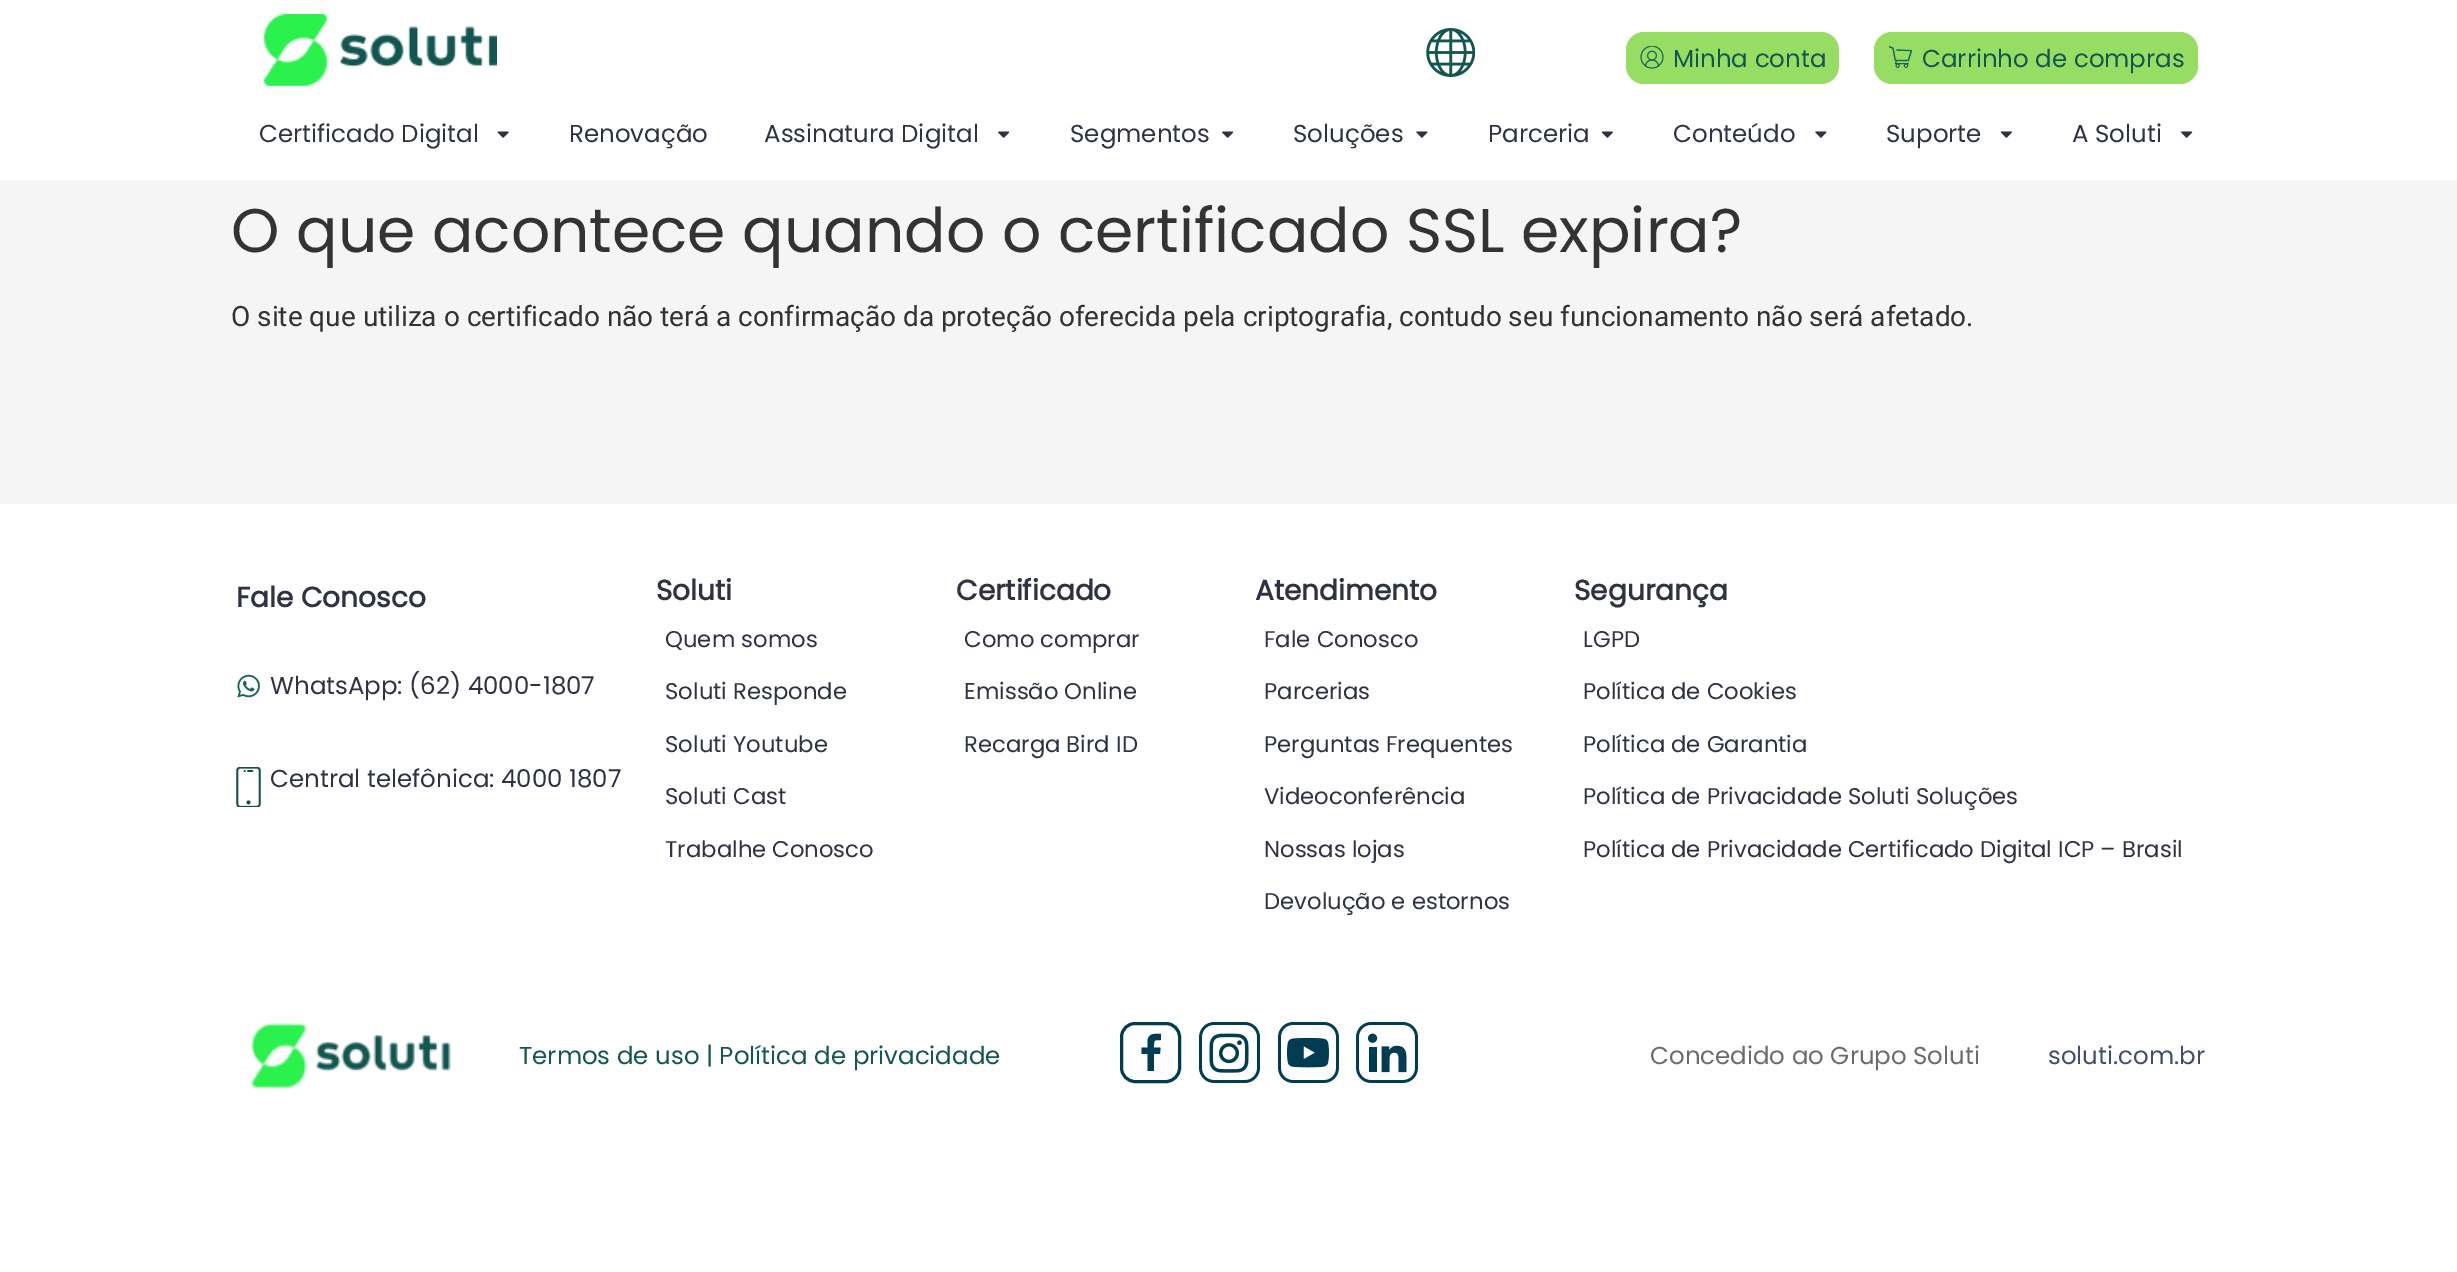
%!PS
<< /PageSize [2457 1272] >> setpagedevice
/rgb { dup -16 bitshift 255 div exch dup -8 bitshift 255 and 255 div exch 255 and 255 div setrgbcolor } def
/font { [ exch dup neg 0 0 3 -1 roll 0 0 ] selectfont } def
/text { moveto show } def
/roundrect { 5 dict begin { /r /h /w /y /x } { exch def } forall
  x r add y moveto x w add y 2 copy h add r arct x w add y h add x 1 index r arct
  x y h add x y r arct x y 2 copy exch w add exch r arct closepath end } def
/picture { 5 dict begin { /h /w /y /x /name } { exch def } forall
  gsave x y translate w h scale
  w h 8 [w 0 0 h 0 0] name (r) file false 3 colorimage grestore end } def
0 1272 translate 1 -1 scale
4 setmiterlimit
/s1 { /Poppins-Regular 24.5 font 16#135650 rgb } def
/s2 { /Poppins-Regular 24.5 font 16#2F3242 rgb } def
/s3 { /Poppins-Regular 61.6 font 16#333333 rgb } def
/s4 { /Roboto-Regular 28 font 16#333333 rgb } def
/s5 { /Poppins-Bold 28 font 16#2F3242 rgb } def
/s6 { /Poppins-Regular 22.75 font 16#2F3242 rgb } def
/s7 { /Poppins-Regular 24.5 font 16#6B6B6B rgb } def
/s8 { /Poppins-Regular 24.5 font 16#444C6D rgb } def
16#F5F5F5 rgb
0 0 2457 1272 rectfill
16#FFFFFF rgb
0 0 2457 180 rectfill
(pic1.raw) 264 14 233 72 picture
(pic2.raw) 1426 28 49 49 picture
16#98DD63 rgb
1626 32 213 52 18 roundrect fill
(pic3.raw) 1640 46 24 23 picture
s1
(Minha conta) 1673 67 text
16#98DD63 rgb
1874 32 324 52 18 roundrect fill
(pic4.raw) 1888 46 25 22 picture
s1
(Carrinho de compras) 1922 67 text
s2
(Certificado Digital) 259 142 text
(pic5.raw) 497 131 12 7 picture
(Renovação) 569 142 text
(Assinatura Digital) 764 142 text
(pic6.raw) 998 131 12 7 picture
(Segmentos) 1070 142 text
(pic6.raw) 1222 131 12 7 picture
(Soluções) 1293 142 text
(pic7.raw) 1416 131 12 7 picture
(Parceria) 1488 142 text
(pic8.raw) 1601 131 12 7 picture
(Conteúdo) 1673 142 text
(pic7.raw) 1815 131 12 7 picture
(Suporte) 1886 142 text
(pic8.raw) 2000 131 12 7 picture
(A Soluti) 2072 142 text
(pic6.raw) 2181 131 12 7 picture
s3
(O que acontece quando o certificado SSL expira?) 231 252 text
s4
(O site que utiliza o certificado não terá a confirmação da proteção oferecida pela criptografia, contudo seu funcionamento não será afetado.) 231 326 text
16#FFFFFF rgb
0 504 2457 768 rectfill
s5
(Fale Conosco) 236 607 text
(pic9.raw) 237 674 23 24 picture
s2
(WhatsApp: \(62\) 4000-1807) 270 694 text
(pic10.raw) 236 767 25 40 picture
(Central telefônica: 4000 1807) 270 787 text
s5
(Soluti) 656 600 text
s6
(Quem somos) 665 647 text
(Soluti Responde) 665 699 text
(Soluti Youtube) 665 752 text
(Soluti Cast) 665 804 text
(Trabalhe Conosco) 665 857 text
s5
(Certificado) 956 600 text
s6
(Como comprar) 964 647 text
(Emissão Online) 964 699 text
(Recarga Bird ID) 964 752 text
s5
(Atendimento) 1255 600 text
s6
(Fale Conosco) 1264 647 text
(Parcerias) 1264 699 text
(Perguntas Frequentes) 1264 752 text
(Videoconferência) 1264 804 text
(Nossas lojas) 1264 857 text
(Devolução e estornos) 1264 909 text
s5
(Segurança) 1574 600 text
s6
(LGPD) 1583 647 text
(Política de Cookies) 1583 699 text
(Política de Garantia) 1583 752 text
(Política de Privacidade Soluti Soluções) 1583 804 text
(Política de Privacidade Certificado Digital ICP – Brasil) 1583 857 text
(pic11.raw) 251 1023 200 66 picture
s1
(Termos de uso | Política de privacidade) 519 1064 text
16#013D52 rgb
1154 1071 moveto 1154 1054 lineto 1160 1054 lineto 1160.5 1047.5 lineto 1154 1047.5 lineto 1154 1040 1153.5 1040 1161 1040 curveto 1161 1034 lineto 1155.5 1033.5 1148.5 1033 1147.5 1040.5 curveto 1147.5 1047.5 lineto 1141.5 1047.5 lineto 1141.5 1054 lineto 1147.5 1054 lineto 1147.5 1071 lineto closepath fill
3 setlinewidth
1121.5 1023.5 58 58 13.5 roundrect stroke
(pic12.raw) 1199 1022 61 61 picture
(pic13.raw) 1278 1022 61 61 picture
(pic14.raw) 1356 1022 62 61 picture
s7
(Concedido ao Grupo Soluti) 1650 1064 text
s8
(soluti.com.br) 2048 1064 text
showpage
